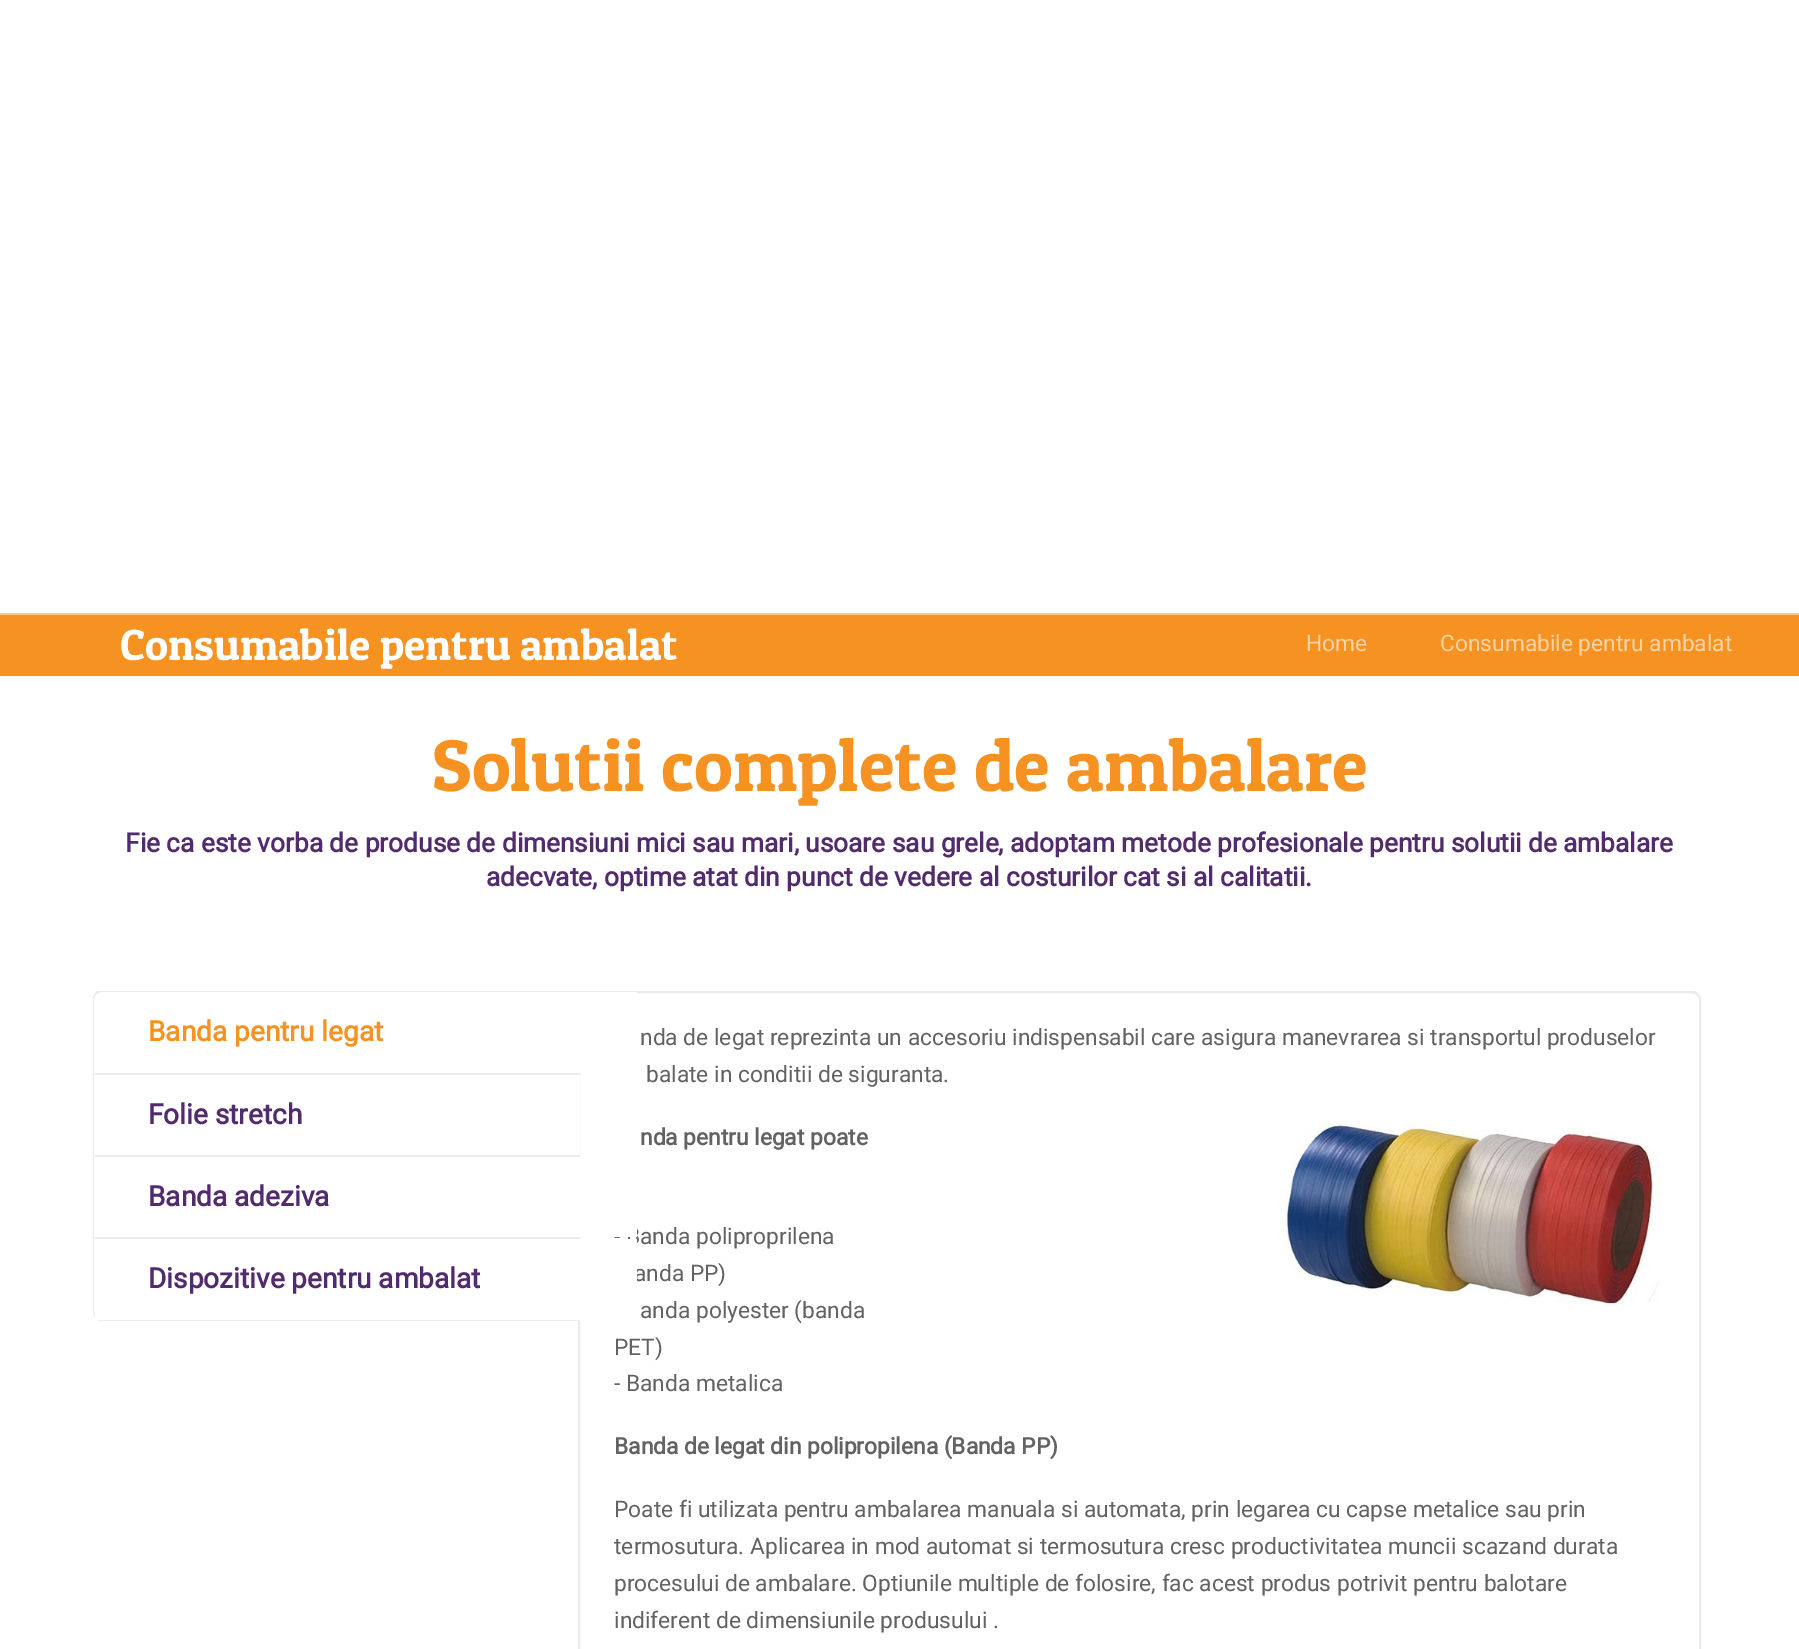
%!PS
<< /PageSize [1799 1649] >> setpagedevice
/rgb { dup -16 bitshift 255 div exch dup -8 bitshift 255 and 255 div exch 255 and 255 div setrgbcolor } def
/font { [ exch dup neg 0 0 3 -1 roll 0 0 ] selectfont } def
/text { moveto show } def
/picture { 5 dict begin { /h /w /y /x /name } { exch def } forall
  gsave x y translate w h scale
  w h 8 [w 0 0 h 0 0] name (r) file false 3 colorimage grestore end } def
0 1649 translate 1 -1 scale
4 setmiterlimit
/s1 { /PatuaOne-Regular 43.75 font 16#FFFFFF rgb } def
/s2 { /Roboto-Regular 22.75 font 16#FBD3A6 rgb } def
/s3 { /PatuaOne-Regular 73.5 font 16#F59221 rgb } def
/s4 { /Roboto-Bold 26.25 font 16#512B6E rgb } def
/s5 { /Roboto-Bold 28 font 16#F59221 rgb } def
/s6 { /Roboto-Bold 28 font 16#512B6E rgb } def
/s7 { /Roboto-Regular 22.75 font 16#626262 rgb } def
/s8 { /Roboto-Bold 22.75 font 16#626262 rgb } def
16#FFFFFF rgb
0 0 1799 1649 rectfill
16#F59221 rgb
0 615 1799 61 rectfill
16#FAC990 rgb
0 613 1799 2 rectfill
s1
(Consumabile pentru ambalat) 120 660 text
s2
(Home) 1306 651 text
(Consumabile pentru ambalat) 1440 651 text
s3
(Solutii complete de ambalare) 432 791 text
s4
(Fie ca este vorba de produse de dimensiuni mici sau mari, usoare sau grele, adoptam metode profesionale pentru solutii de ambalare) 125 852 text
(adecvate, optime atat din punct de vedere al costurilor cat si al calitatii.) 486 886 text
gsave
93 991 1613 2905 rectclip
16#EBEBEB rgb
102 990 moveto 578 990 lineto 578 1321 lineto 102 1321 lineto 97 1321 93 1317 93 1312 curveto 93 999 lineto 93 994 97 990 102 990 curveto closepath 102 992 moveto 578 992 lineto 578 1320 lineto 102 1320 lineto 98 1320 94 1316 94 1312 curveto 94 999 lineto 94 995 98 992 102 992 curveto closepath eofill
grestore
16#EBEBEB rgb
95 1073 483 2 rectfill
2 setlinewidth
579 992 moveto 1692 992 lineto 1696.5 992 1700 995.5 1700 1000 curveto 1700 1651 lineto 1700 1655.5 1696.5 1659 1692 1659 curveto 587 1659 lineto 582.5 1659 579 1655.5 579 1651 curveto closepath stroke
16#FFFFFF rgb
104 992 moveto 637 992 lineto 637 1073 lineto 95 1073 lineto 95 1001 lineto 95 996 99 992 104 992 curveto closepath fill
s5
(Banda pentru legat) 148 1041 text
16#EBEBEB rgb
95 1155 483 2 rectfill
16#FFFFFF rgb
578 1075 2 80 rectfill
s6
(Folie stretch) 148 1124 text
16#EBEBEB rgb
95 1237 483 2 rectfill
s7
(- Banda poliproprilena) 614 1244 text
16#FFFFFF rgb
578 1157 59 80 rectfill
s6
(Banda adeziva) 148 1206 text
s7
(anda PP\)) 634 1281 text
16#FFFFFF rgb
95 1239 542 81 rectfill
s6
(Dispozitive pentru ambalat) 148 1288 text
s7
(nda de legat reprezinta un accesoriu indispensabil care asigura manevrarea si transportul produselor) 640 1045 text
(balate in conditii de siguranta.) 646 1082 text
s8
(nda pentru legat poate) 640 1145 text
(pic1.raw) 1279 1118 382 189 picture
s7
(anda polyester \(banda) 640 1318 text
(PET\)) 614 1355 text
(- Banda metalica) 614 1391 text
s8
(Banda de legat din polipropilena \(Banda PP\)) 614 1454 text
s7
(Poate fi utilizata pentru ambalarea manuala si automata, prin legarea cu capse metalice sau prin) 614 1517 text
(termosutura. Aplicarea in mod automat si termosutura cresc productivitatea muncii scazand durata) 614 1554 text
(procesului de ambalare. Optiunile multiple de folosire, fac acest produs potrivit pentru balotare) 614 1591 text
(indiferent de dimensiunile produsului .) 614 1628 text
showpage
